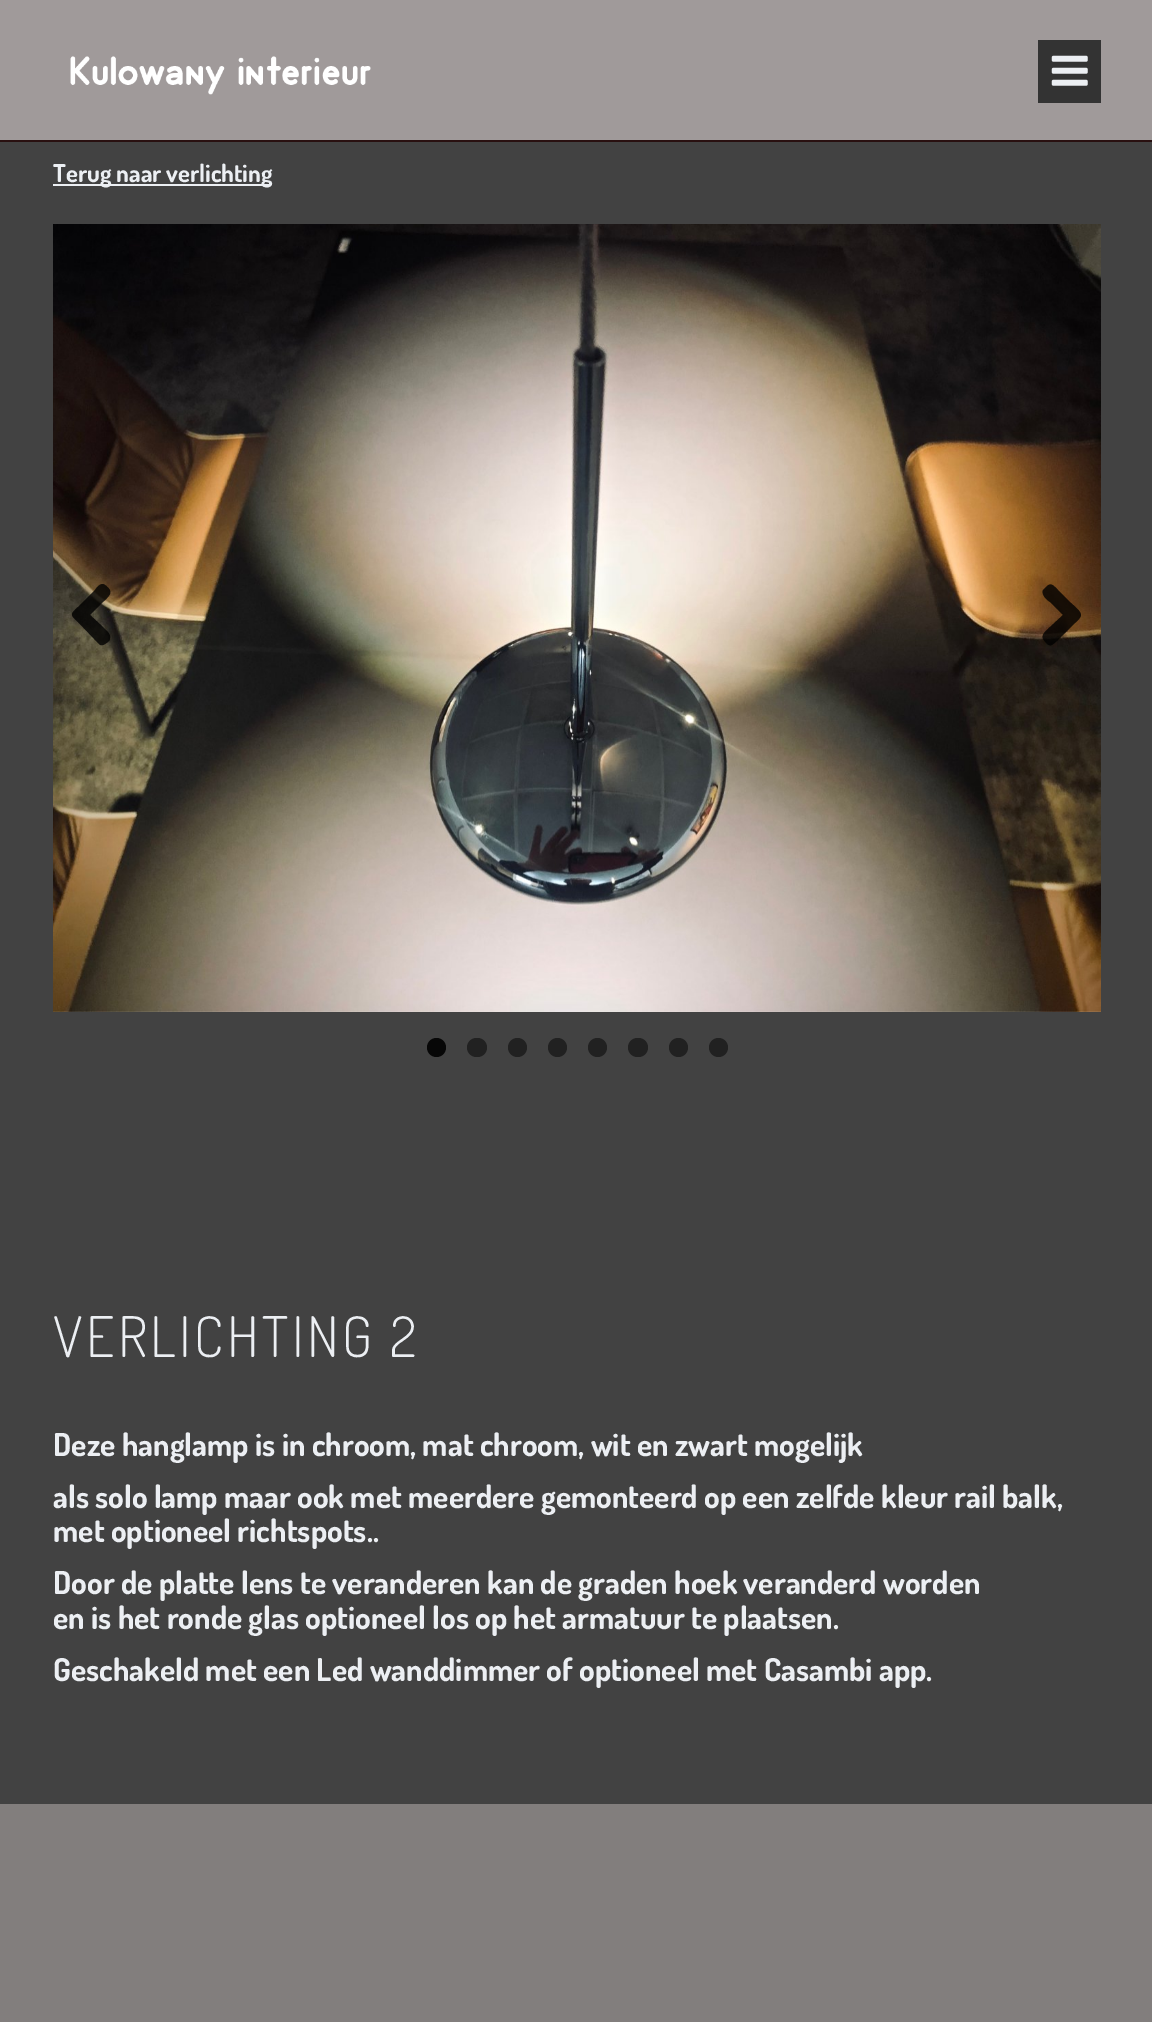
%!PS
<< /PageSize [1152 2022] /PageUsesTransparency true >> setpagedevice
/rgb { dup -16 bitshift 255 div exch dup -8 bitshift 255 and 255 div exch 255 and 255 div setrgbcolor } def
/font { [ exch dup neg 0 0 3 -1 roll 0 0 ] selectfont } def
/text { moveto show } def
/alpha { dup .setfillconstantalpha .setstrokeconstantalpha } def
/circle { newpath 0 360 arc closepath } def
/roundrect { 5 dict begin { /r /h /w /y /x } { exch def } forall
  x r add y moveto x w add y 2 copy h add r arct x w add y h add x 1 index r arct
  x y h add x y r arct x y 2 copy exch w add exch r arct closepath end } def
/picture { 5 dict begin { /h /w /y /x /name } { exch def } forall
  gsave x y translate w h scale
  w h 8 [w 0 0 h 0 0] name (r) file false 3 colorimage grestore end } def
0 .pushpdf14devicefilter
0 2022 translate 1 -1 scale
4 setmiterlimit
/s1 { /Dosis-Bold 24.5 font 16#ECEFF3 rgb } def
/s2 { /Dosis-Bold 31.5 font 16#ECEFF3 rgb } def
16#827E7D rgb
0 0 1152 2022 rectfill
16#A09A9A rgb
0 0 1152 140 rectfill
16#291010 rgb
0 140 1152 2 rectfill
(pic1.raw) 70 56 301 39 picture
16#333333 rgb
1038 40 63 63 rectfill
(pic2.raw) 1051 55 37 31 picture
16#424242 rgb
0 142 1152 1662 rectfill
16#ECEFF3 rgb
53 184 218 2 rectfill
s1
(Terug naar verlichting) 53 182 text
(pic3.raw) 53 224 1048 788 picture
0.8 alpha
16#000000 rgb
99 644 moveto 78 622 lineto 70 615 70 614 78 607 curveto 95 590 lineto 97 587 101 582 105 585 curveto 115 592 109 596 103 602 curveto 90 615 lineto 103 627 lineto 105 630 111 633 110 638 curveto 110 640 109 641 108 642 curveto 105 644 102 647 99 644 curveto closepath fill
1081 615 moveto 1081 619 1073 624 1071 627 curveto 1058 640 lineto 1053 644 1051 648 1046 643 curveto 1043 639 lineto 1041 634 1047 630 1050 627 curveto 1063 615 lineto 1050 602 lineto 1047 600 1041 595 1043 590 curveto 1046 587 lineto 1051 582 1053 585 1058 590 curveto 1071 603 lineto 1073 605 1081 611 1081 615 curveto closepath fill
1 alpha
16#070707 rgb
436.5 1047.5 9.5 circle fill
16#212121 rgb
467 1038 20 19 9.5 roundrect fill
517.5 1047.5 9.5 circle fill
557.5 1047.5 9.5 circle fill
597.5 1047.5 9.5 circle fill
628 1038 20 19 9.5 roundrect fill
678.5 1047.5 9.5 circle fill
718.5 1047.5 9.5 circle fill
/Dosis-Light 56 font
16#ECEFF3 rgb
53 1357 moveto 3.5 0 (VERLICHTING 2) ashow
s2
(Deze hanglamp is in chroom, mat chroom, wit en zwart mogelijk) 53 1456 text
(als solo lamp maar ook met meerdere gemonteerd op een zelfde kleur rail balk,) 53 1508 text
(met optioneel richtspots..) 53 1542 text
(Door de platte lens te veranderen kan de graden hoek veranderd worden) 53 1594 text
(en is het ronde glas optioneel los op het armatuur te plaatsen.) 53 1629 text
(Geschakeld met een Led wanddimmer of optioneel met Casambi app.) 53 1681 text
.poppdf14devicefilter showpage
